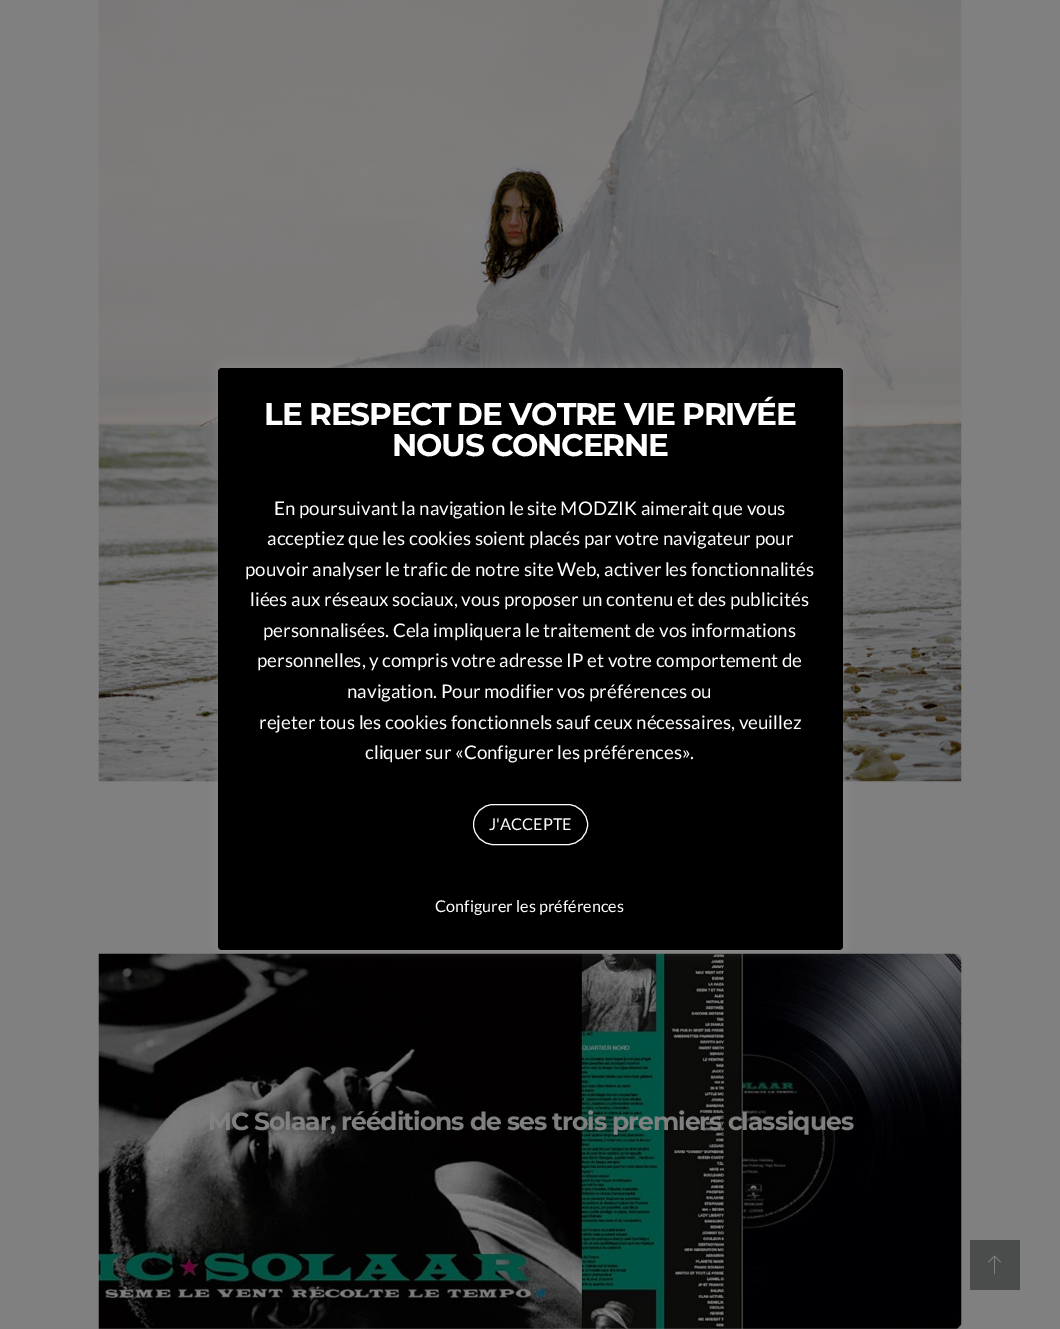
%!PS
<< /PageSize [1060 1329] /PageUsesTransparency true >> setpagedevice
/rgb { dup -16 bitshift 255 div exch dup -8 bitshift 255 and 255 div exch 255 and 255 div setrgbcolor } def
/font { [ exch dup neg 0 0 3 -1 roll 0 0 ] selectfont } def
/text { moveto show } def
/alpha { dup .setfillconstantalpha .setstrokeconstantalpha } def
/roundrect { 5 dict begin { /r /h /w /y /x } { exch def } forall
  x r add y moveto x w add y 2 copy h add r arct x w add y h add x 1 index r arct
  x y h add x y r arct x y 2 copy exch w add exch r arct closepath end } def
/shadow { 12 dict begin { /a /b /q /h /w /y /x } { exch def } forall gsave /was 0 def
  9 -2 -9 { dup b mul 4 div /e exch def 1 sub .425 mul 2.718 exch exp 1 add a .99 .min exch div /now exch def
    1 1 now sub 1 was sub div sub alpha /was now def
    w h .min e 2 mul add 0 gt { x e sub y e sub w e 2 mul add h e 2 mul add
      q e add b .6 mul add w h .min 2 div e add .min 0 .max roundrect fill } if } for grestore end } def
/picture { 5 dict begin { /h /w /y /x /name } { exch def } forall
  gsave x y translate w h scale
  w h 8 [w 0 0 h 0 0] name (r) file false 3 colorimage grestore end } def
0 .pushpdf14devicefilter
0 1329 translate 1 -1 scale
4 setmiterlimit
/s1 { /Lato-Regular 18.75 font 16#FFFFFF rgb } def
/s2 { /Lato-Regular 16.25 font 16#FFFFFF rgb } def
16#808080 rgb
0 0 1060 1329 rectfill
(pic1.raw) 98 0 864 782 picture
(pic2.raw) 98 953 864 376 picture
16#ACABAB rgb
218 366 625 583 4 6 0.3 shadow
16#000000 rgb
218 368 625 582 4 roundrect fill
/Montserrat-Bold 31.25 font
16#FFFFFF rgb
264 425 moveto -1.25 0 (LE RESPECT DE VOTRE VIE PRIVÉE) ashow
392 456 moveto -1.25 0 (NOUS CONCERNE) ashow
s1
(En poursuivant la navigation le site MODZIK aimerait que vous) 274 515 text
(acceptiez que les cookies soient placés par votre navigateur pour) 267 545 text
(pouvoir analyser le trafic de notre site Web, activer les fonctionnalités) 245 576 text
(liées aux réseaux sociaux, vous proposer un contenu et des publicités) 250 606 text
(personnalisées. Cela impliquera le traitement de vos informations) 263 637 text
(personnelles, y compris votre adresse IP et votre comportement de) 257 667 text
(navigation. Pour modifier vos préférences ou) 347 698 text
(rejeter tous les cookies fonctionnels sauf ceux nécessaires, veuillez) 259 729 text
(cliquer sur «Configurer les préférences».) 365 759 text
473.5 804.5 114 40 20 roundrect stroke
s2
(J'ACCEPTE) 489 830 text
(Configurer les préférences) 435 912 text
/Montserrat-Bold 25 font
16#808080 rgb
208 1130 moveto -1 0 (MC Solaar, rééditions de ses trois premiers classiques) ashow
16#4B4C4C rgb
970 1240 50 50 rectfill
(pic3.raw) 988 1255 13 19 picture
.poppdf14devicefilter showpage
